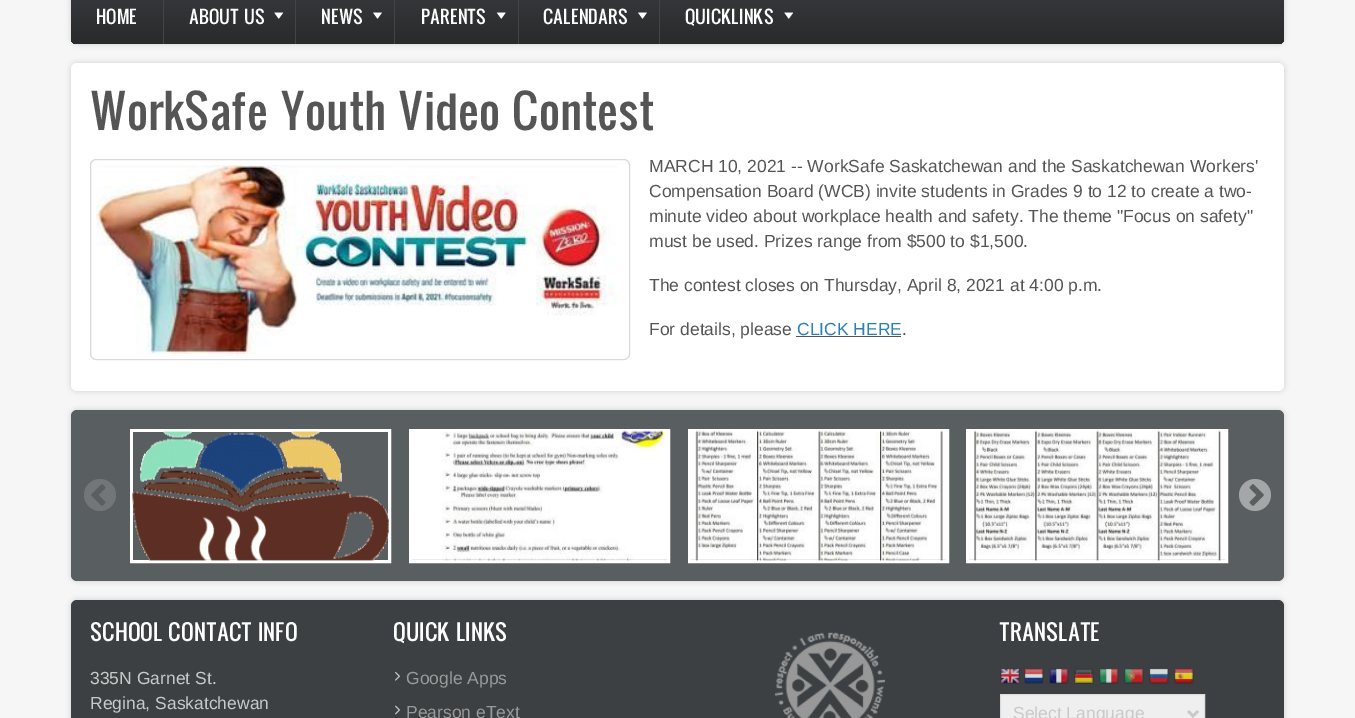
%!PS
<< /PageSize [1355 718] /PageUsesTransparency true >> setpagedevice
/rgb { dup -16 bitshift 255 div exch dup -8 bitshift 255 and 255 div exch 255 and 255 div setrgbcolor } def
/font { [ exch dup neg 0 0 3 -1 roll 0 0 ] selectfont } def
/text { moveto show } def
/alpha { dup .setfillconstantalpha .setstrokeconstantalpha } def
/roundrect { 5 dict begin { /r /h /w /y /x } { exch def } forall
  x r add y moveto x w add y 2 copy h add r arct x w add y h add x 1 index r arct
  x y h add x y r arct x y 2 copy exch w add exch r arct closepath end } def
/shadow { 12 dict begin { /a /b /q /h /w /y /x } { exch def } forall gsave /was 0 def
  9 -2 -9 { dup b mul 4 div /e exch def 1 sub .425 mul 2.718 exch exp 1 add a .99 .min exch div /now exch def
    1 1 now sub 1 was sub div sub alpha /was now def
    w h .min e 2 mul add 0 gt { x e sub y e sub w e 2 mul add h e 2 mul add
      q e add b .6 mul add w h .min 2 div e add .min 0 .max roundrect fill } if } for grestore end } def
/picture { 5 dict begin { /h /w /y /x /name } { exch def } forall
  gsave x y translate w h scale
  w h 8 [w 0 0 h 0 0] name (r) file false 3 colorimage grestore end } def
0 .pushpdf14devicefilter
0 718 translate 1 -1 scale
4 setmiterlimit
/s1 { /Oswald-Regular 17.5 font 16#FFFFFF rgb } def
/s2 { /Oswald-Regular 45 font 16#555555 rgb } def
/s3 { /LiberationSans-Regular 17.5 font 16#555555 rgb } def
/s4 { /LiberationSans-Regular 17.5 font 16#2980B9 rgb } def
/s5 { /Oswald-Regular 21.5 font 16#FFFFFF rgb } def
/s6 { /LiberationSans-Regular 17.5 font 16#C9C9C9 rgb } def
/s7 { /LiberationSans-Regular 17.5 font 16#999999 rgb } def
16#F6F6F6 rgb
0 0 1355 718 rectfill
16#CCCCCC rgb
71 -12 1213 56 6 3 1 shadow
gsave 71 -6 1213 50 6 roundrect clip newpath
<< /ShadingType 2 /ColorSpace /DeviceRGB /Coords [678 -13 678 44] /Extend [true true] /Function << /FunctionType 2 /Domain [0 1] /C0 [0.216 0.227 0.239] /C1 [0.157 0.165 0.173] /N 1 >> >> shfill grestore
s1
(HOME) 96 24 text
16#444444 rgb
163 0 1 44 rectfill
s1
(ABOUT US) 189 24 text
(pic1.raw) 274 12 10 7 picture
16#444444 rgb
295 0 1 44 rectfill
s1
(NEWS) 321 24 text
(pic2.raw) 373 12 9 7 picture
16#444444 rgb
394 0 1 44 rectfill
s1
(PARENTS) 421 24 text
(pic3.raw) 496 12 10 7 picture
16#444444 rgb
518 0 1 44 rectfill
s1
(CALENDARS) 543 24 text
(pic2.raw) 638 12 9 7 picture
16#444444 rgb
659 0 1 44 rectfill
s1
(QUICKLINKS) 685 24 text
(pic1.raw) 784 12 10 7 picture
16#CCCCCC rgb
71 63 1213 328 6 3 1 shadow
16#FFFFFF rgb
71 63 1213 328 6 roundrect fill
s2
(WorkSafe Youth Video Contest) 90 130 text
16#DADADA rgb
90.5 159.5 539 200 5.5 roundrect stroke
(pic4.raw) 96 165 521 189 picture
s3
(MARCH 10, 2021 -- WorkSafe Saskatchewan and the Saskatchewan Workers') 649 172 text
(Compensation Board \(WCB\) invite students in Grades 9 to 12 to create a two-) 649 197 text
(minute video about workplace health and safety. The theme "Focus on safety") 649 222 text
(must be used. Prizes range from $500 to $1,500.) 649 247 text
(The contest closes on Thursday, April 8, 2021 at 4:00 p.m.) 649 291 text
(For details, please) 649 335 text
s4
(CLICK HERE) 797 335 text
16#555555 rgb
796 336 105 1 rectfill
(.) 902 335 text
16#CCCCCC rgb
71 410 1213 171 6 3 1 shadow
16#595E61 rgb
71 410 1213 171 6 roundrect fill
(pic5.raw) 84 479 32 32 picture
16#FFFFFF rgb
3 setlinewidth
131.5 430.5 258 131 rectstroke
(pic6.raw) 132 430 257 131 picture
410.5 430.5 258 131 rectstroke
(pic7.raw) 412 430 256 131 picture
689.5 430.5 258 131 rectstroke
(pic8.raw) 691 430 255 131 picture
967.5 430.5 259 131 rectstroke
(pic9.raw) 969 430 256 131 picture
(pic10.raw) 1239 479 32 32 picture
16#CCCCCC rgb
71 600 1213 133 6 3 1 shadow
16#3C4043 rgb
71 600 1213 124 6 roundrect fill
s5
(SCHOOL CONTACT INFO) 90 641 text
s6
(335N Garnet St.) 90 684 text
(Regina, Saskatchewan) 90 709 text
s5
(QUICK LINKS) 393 641 text
(pic11.raw) 395 671 5 10 picture
s7
(Google Apps) 406 684 text
(pic12.raw) 395 705 5 10 picture
(Pearson eText) 406 718 text
(pic13.raw) 774 632 112 86 picture
s5
(TRANSLATE) 999 641 text
(pic14.raw) 1000 668 20 16 picture
(pic15.raw) 1024 668 20 16 picture
(pic16.raw) 1049 668 20 16 picture
(pic17.raw) 1074 668 20 16 picture
(pic18.raw) 1099 668 20 16 picture
(pic19.raw) 1124 668 20 16 picture
(pic20.raw) 1149 668 20 16 picture
(pic21.raw) 1174 668 20 16 picture
16#EFEFEF rgb
1000.5 694.5 moveto 1204.5 694.5 lineto 1204.5 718.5 lineto 1000.5 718.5 lineto closepath gsave fill grestore
16#DDDDDD rgb
1 setlinewidth
stroke
16#C9C9C9 rgb
2.5 setlinewidth
1188 711 moveto 1193 716 lineto 1198 711 lineto stroke
s6
(Select Language) 1013 719 text
.poppdf14devicefilter showpage
